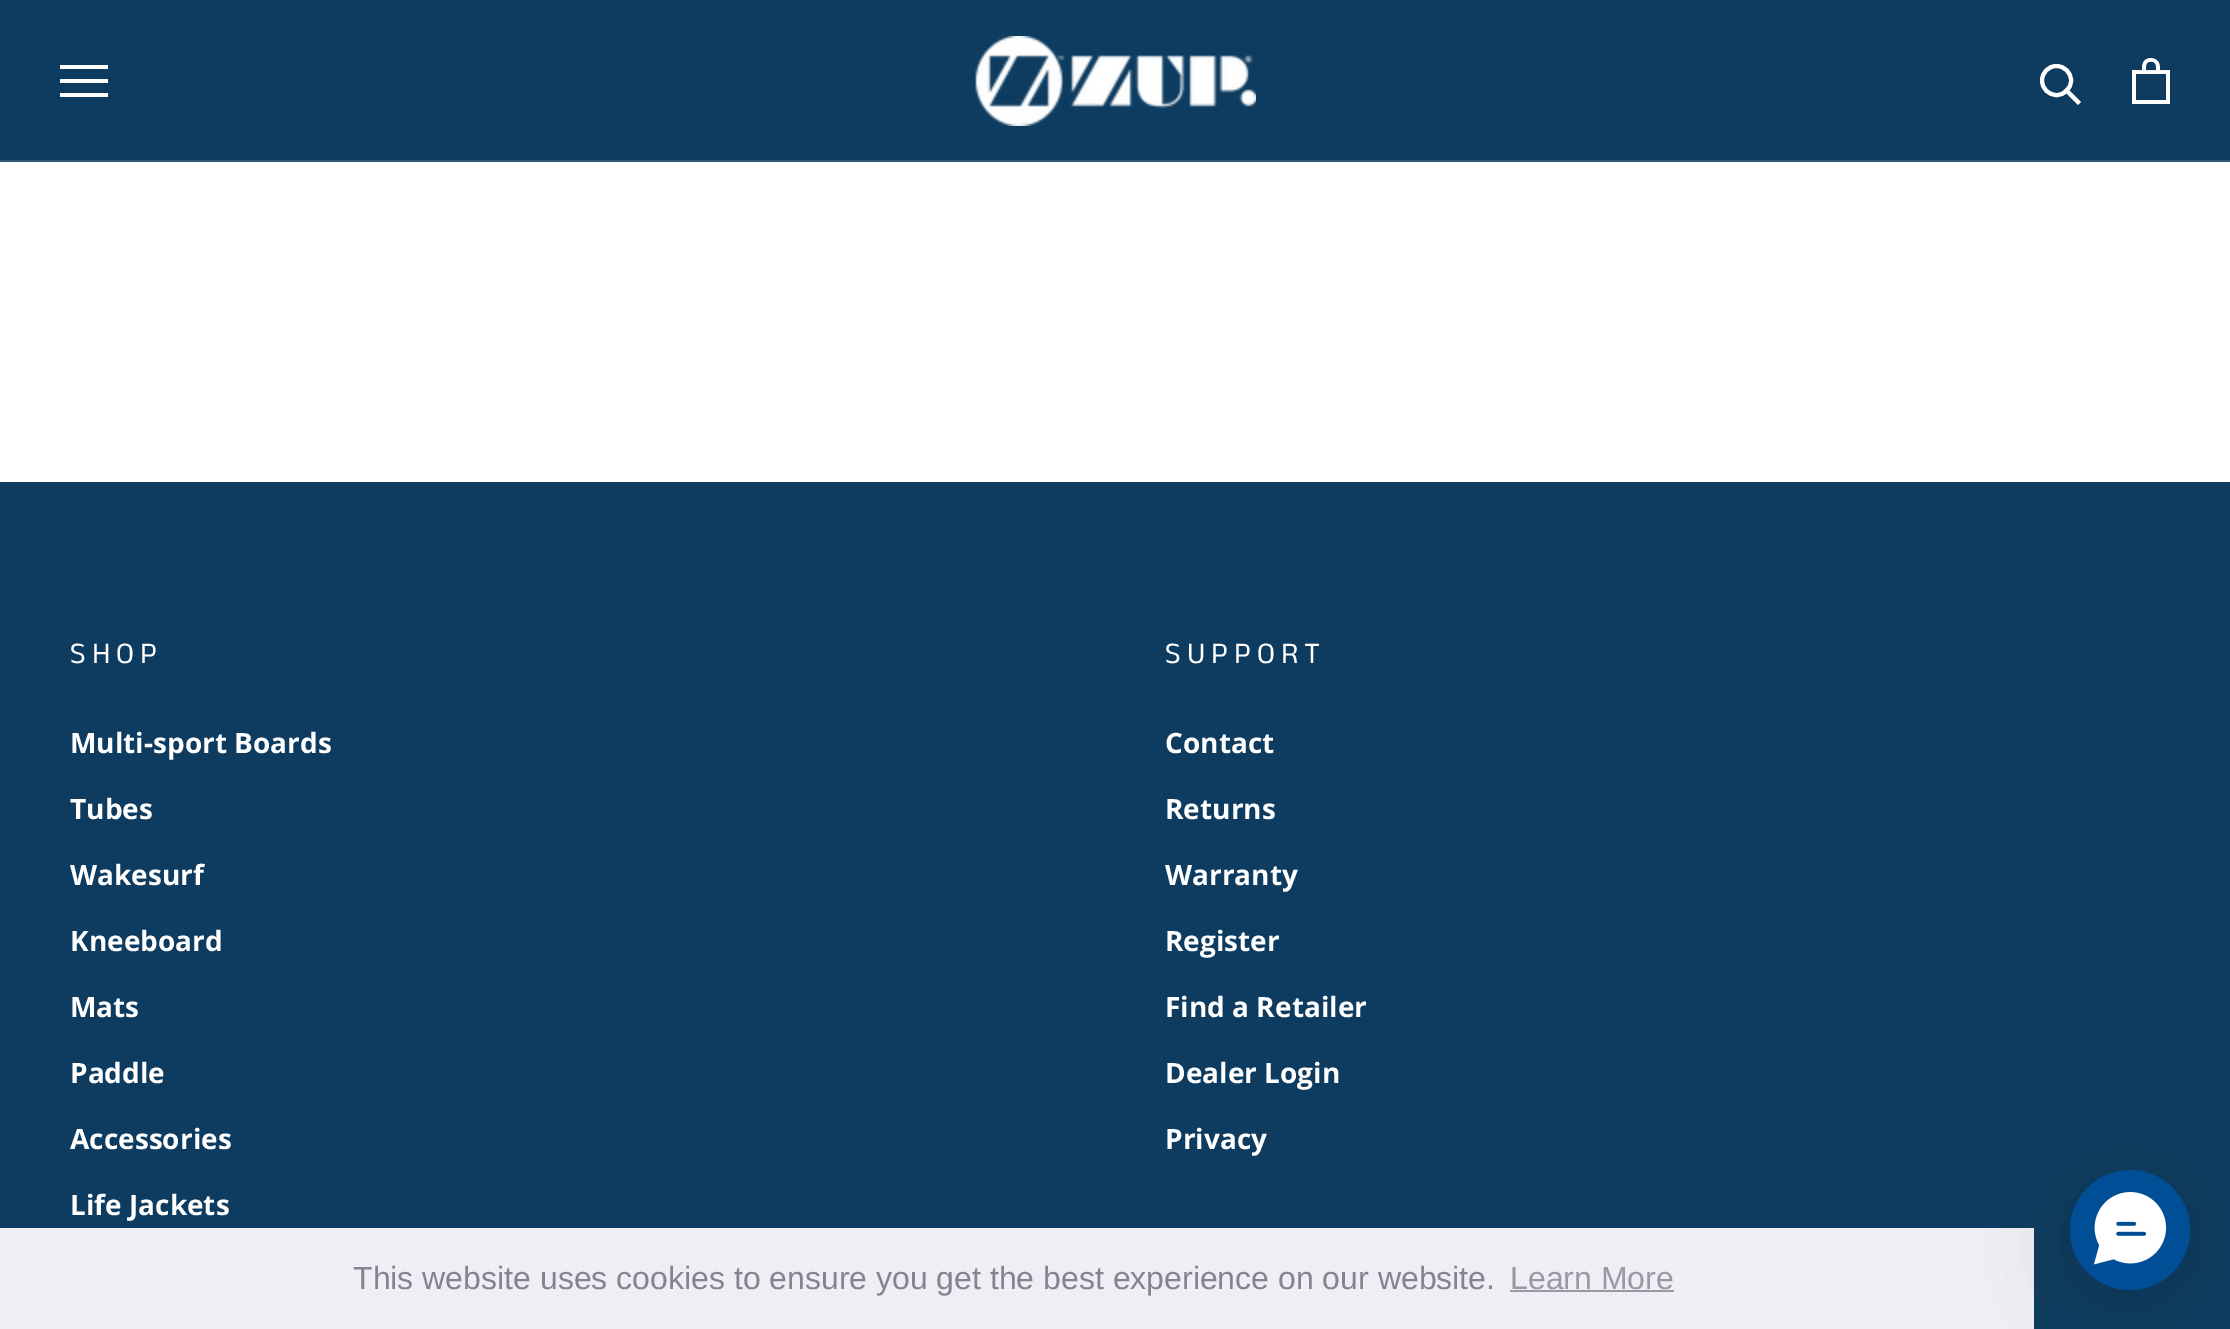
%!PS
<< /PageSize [2230 1329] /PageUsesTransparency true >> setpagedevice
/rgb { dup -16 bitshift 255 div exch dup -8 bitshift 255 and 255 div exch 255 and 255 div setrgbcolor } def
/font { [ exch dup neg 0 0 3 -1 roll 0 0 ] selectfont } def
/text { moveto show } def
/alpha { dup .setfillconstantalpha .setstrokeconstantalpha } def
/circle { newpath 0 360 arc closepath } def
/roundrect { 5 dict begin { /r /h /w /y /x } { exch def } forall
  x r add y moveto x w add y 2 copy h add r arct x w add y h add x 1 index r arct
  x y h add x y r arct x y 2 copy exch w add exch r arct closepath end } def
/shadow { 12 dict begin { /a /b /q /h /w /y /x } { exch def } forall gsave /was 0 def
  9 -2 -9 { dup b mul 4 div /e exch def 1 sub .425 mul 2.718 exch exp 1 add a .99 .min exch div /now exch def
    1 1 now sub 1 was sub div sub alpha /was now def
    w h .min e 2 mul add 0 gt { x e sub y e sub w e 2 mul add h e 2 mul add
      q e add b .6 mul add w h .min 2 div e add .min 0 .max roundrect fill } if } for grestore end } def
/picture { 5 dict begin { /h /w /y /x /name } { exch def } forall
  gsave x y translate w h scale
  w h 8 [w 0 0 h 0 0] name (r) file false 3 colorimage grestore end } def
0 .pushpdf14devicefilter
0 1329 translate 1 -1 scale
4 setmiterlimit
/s1 { /OpenSans-Bold 28 font 16#FFFFFF rgb } def
/s2 { /LiberationSans-Regular 32 font 16#838391 rgb } def
/s3 { /LiberationSans-Regular 32 font 16#9899A5 rgb } def
16#FFFFFF rgb
0 0 2230 1329 rectfill
16#0E3C60 rgb
0 0 2230 160 rectfill
16#325978 rgb
0 160 2230 2 rectfill
16#FFFFFF rgb
60 97 moveto 60 93 lineto 108 93 lineto 108 97 lineto closepath 60 79 moveto 108 79 lineto 108 83 lineto 60 83 lineto closepath 60 65 moveto 108 65 lineto 108 69 lineto 60 69 lineto closepath fill
(pic1.raw) 975 36 281 90 picture
4 setlinewidth
2 setlinecap
2078 102 moveto 2066.5 90.5 lineto stroke
0 setlinecap
2056.5 80.5 14.5 circle stroke
(pic2.raw) 2132 58 38 46 picture
16#0E3C60 rgb
0 482 2230 746 rectfill
/AnekTamil-Regular 30 font
16#FFFFFF rgb
70 663 moveto 6 0 (SHOP) ashow
s1
(Multi-sport Boards) 70 753 text
(Tubes) 70 819 text
(Wakesurf) 70 885 text
(Kneeboard) 70 951 text
(Mats) 70 1017 text
(Paddle) 70 1083 text
(Accessories) 70 1149 text
(Life Jackets) 70 1215 text
/AnekTamil-Regular 30 font
1165 663 moveto 6 0 (SUPPORT) ashow
s1
(Contact) 1165 753 text
(Returns) 1165 819 text
(Warranty) 1165 885 text
(Register) 1165 951 text
(Find a Retailer) 1165 1017 text
(Dealer Login) 1165 1083 text
(Privacy) 1165 1149 text
16#EDEFF5 rgb
0 1228 2034 101 rectfill
16#0E3C60 rgb
2034 1228 196 101 rectfill
16#000000 rgb
2070 1180 120 120 60 40 0.16 shadow
16#004E96 rgb
2130 1230 60 circle fill
(pic3.raw) 2094 1192 73 73 picture
s2
(This website uses cookies to ensure you get the best experience on our website.) 353 1289 text
s3
(Learn More) 1510 1289 text
1510 1290 164 2 rectfill
.poppdf14devicefilter showpage
